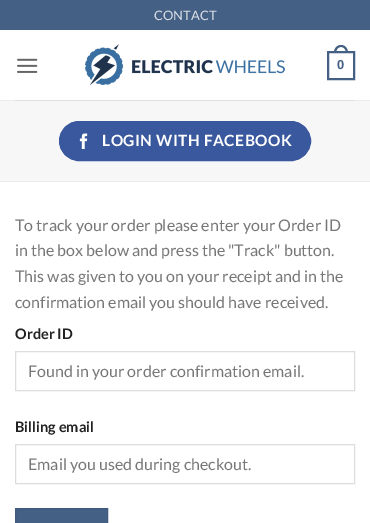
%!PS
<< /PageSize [370 523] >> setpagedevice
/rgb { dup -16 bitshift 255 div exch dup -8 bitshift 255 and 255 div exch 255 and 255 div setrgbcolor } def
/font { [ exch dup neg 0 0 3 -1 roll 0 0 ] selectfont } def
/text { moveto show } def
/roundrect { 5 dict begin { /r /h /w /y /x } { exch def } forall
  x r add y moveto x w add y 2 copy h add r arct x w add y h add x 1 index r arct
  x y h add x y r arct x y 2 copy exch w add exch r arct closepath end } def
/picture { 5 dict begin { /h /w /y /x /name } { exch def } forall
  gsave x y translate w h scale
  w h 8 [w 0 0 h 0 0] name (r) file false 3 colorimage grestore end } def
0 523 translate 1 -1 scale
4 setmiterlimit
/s1 { /Lato-Regular 13 font 16#DADFE6 rgb } def
/s2 { /LiberationSans-Bold 13 font 16#446084 rgb } def
/s3 { /Lato-Regular 16 font 16#777777 rgb } def
/s4 { /Lato-Bold 14.5 font 16#222222 rgb } def
16#FFFFFF rgb
0 0 370 523 rectfill
16#446084 rgb
0 0 370 30 rectfill
s1
(CONTACT) 154 20 text
(pic1.raw) 17 58 21 15 picture
(pic2.raw) 85 44 200 42 picture
16#446084 rgb
2 setlinewidth
328 52 26 27 rectstroke
341 45 moveto 345.5 45 348 49 348 53 curveto 334 53 lineto 334 49 336.5 45 341 45 curveto closepath 341 47 moveto 344.5 47 346 50 346 53 curveto 336 53 lineto 336 50 337.5 47 341 47 curveto closepath eofill
s2
(0) 337 69 text
16#ECECEC rgb
0 100 370 1 rectfill
16#E0E0E0 rgb
15 100 340 1 rectfill
16#F7F7F7 rgb
0 101 370 80 rectfill
16#ECECEC rgb
0 181 370 1 rectfill
16#3A589D rgb
59.5 121.5 251 39 19.5 roundrect gsave fill grestore
1 setlinewidth
stroke
(pic3.raw) 79 133 9 16 picture
/Lato-Bold 15.5 font
16#FFFFFF rgb
102 146 moveto 0.5 0 (LOGIN WITH FACEBOOK) ashow
s3
(To track your order please enter your Order ID) 15 231 text
(in the box below and press the "Track" button.) 15 256 text
(This was given to you on your receipt and in the) 15 282 text
(confirmation email you should have received.) 15 308 text
s4
(Order ID) 15 339 text
16#DDDDDD rgb
15.5 351.5 339 39 rectstroke
s3
(Found in your order confirmation email.) 28 377 text
s4
(Billing email) 15 432 text
16#DDDDDD rgb
15.5 444.5 339 39 rectstroke
s3
(Email you used during checkout.) 28 470 text
16#446084 rgb
15.5 508.5 moveto 107.5 508.5 lineto 107.5 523.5 lineto 15.5 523.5 lineto closepath gsave fill grestore
16#415B7D rgb
stroke
showpage
